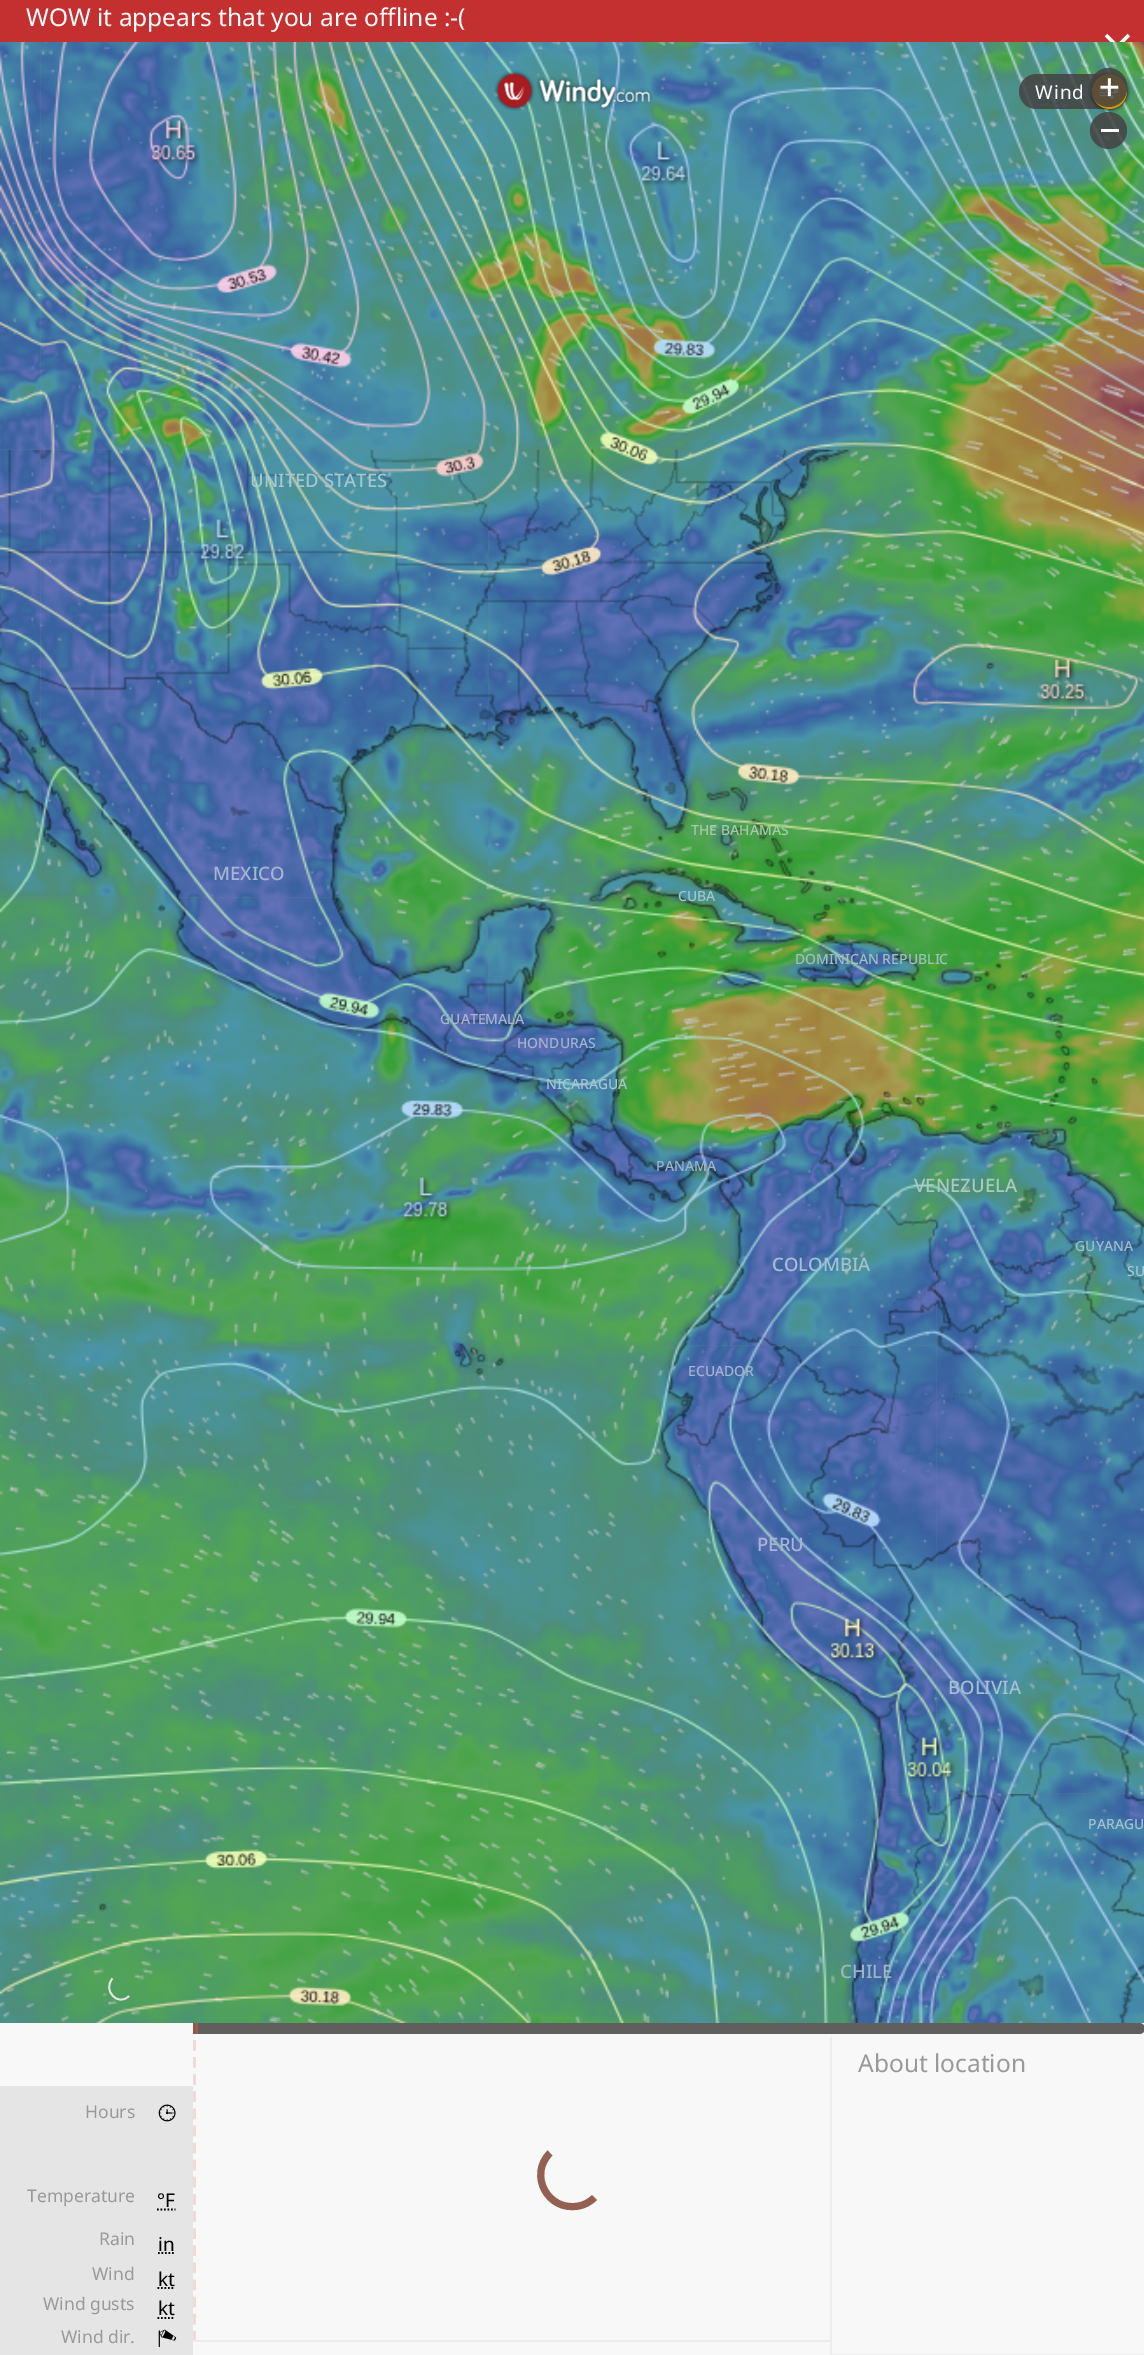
%!PS
<< /PageSize [1144 2355] /PageUsesTransparency true >> setpagedevice
/rgb { dup -16 bitshift 255 div exch dup -8 bitshift 255 and 255 div exch 255 and 255 div setrgbcolor } def
/font { [ exch dup neg 0 0 3 -1 roll 0 0 ] selectfont } def
/text { moveto show } def
/alpha { dup .setfillconstantalpha .setstrokeconstantalpha } def
/circle { newpath 0 360 arc closepath } def
/roundrect { 5 dict begin { /r /h /w /y /x } { exch def } forall
  x r add y moveto x w add y 2 copy h add r arct x w add y h add x 1 index r arct
  x y h add x y r arct x y 2 copy exch w add exch r arct closepath end } def
/shadow { 12 dict begin { /a /b /q /h /w /y /x } { exch def } forall gsave /was 0 def
  9 -2 -9 { dup b mul 4 div /e exch def 1 sub .425 mul 2.718 exch exp 1 add a .99 .min exch div /now exch def
    1 1 now sub 1 was sub div sub alpha /was now def
    w h .min e 2 mul add 0 gt { x e sub y e sub w e 2 mul add h e 2 mul add
      q e add b .6 mul add w h .min 2 div e add .min 0 .max roundrect fill } if } for grestore end } def
/picture { 5 dict begin { /h /w /y /x /name } { exch def } forall
  gsave x y translate w h scale
  w h 8 [w 0 0 h 0 0] name (r) file false 3 colorimage grestore end } def
0 .pushpdf14devicefilter
0 2355 translate 1 -1 scale
4 setmiterlimit
/s1 { /NotoSans-Regular 24.5 font 16#FFFFFF rgb } def
/s2 { /NotoSans-Medium 18.5 font 16#A6C5CE rgb } def
/s3 { /NotoSans-Medium 18.5 font 16#A6B4D5 rgb } def
/s4 { /NotoSans-Medium 14 font 16#A6CBA9 rgb } def
/s5 { /NotoSans-Medium 14 font 16#A3C5C5 rgb } def
/s6 { /NotoSans-Medium 14 font 16#A5B3CF rgb } def
/s7 { /NotoSans-Medium 14 font 16#A1BFBB rgb } def
/s8 { /NotoSans-Medium 14 font 16#A6C5CE rgb } def
/s9 { /NotoSans-Medium 14 font 16#9DB4C5 rgb } def
/s10 { /NotoSans-Medium 18.5 font 16#A5BFD2 rgb } def
/s11 { /NotoSans-Medium 18.5 font 16#A8CBBD rgb } def
/s12 { /NotoSans-Medium 14 font 16#9FBCCD rgb } def
/s13 { /NotoSans-Medium 14 font 16#A5BFD2 rgb } def
/s14 { /NotoSans-Medium 18.5 font 16#9DB4C5 rgb } def
/s15 { /NotoSans-Regular 24.5 font 16#999999 rgb } def
/s16 { /NotoSans-Regular 17.5 font 16#999999 rgb } def
/s17 { /NotoSans-Regular 19 font 16#000000 rgb } def
16#FFFFFF rgb
0 0 1144 2355 rectfill
16#C42F2F rgb
0 0 1144 42 rectfill
s1
(WOW it appears that you are offline :-\() 26 26 text
(pic1.raw) 1104 33 26 9 picture
(pic15.raw) 40 897 449 449 picture
(pic16.raw) 488 897 449 449 picture
(pic11.raw) 40 449 449 449 picture
(pic19.raw) 40 1345 449 449 picture
(pic14.raw) 0 897 41 449 picture
(pic10.raw) 0 449 41 449 picture
(pic12.raw) 488 449 449 449 picture
(pic7.raw) 40 42 449 408 picture
(pic20.raw) 488 1345 449 449 picture
(pic17.raw) 936 897 208 449 picture
(pic13.raw) 936 449 208 449 picture
(pic8.raw) 488 42 449 408 picture
(pic6.raw) 0 42 41 408 picture
(pic9.raw) 936 42 208 408 picture
(pic18.raw) 0 1346 41 448 picture
(pic21.raw) 936 1345 208 449 picture
(pic23.raw) 40 1793 449 230 picture
(pic22.raw) 0 1794 41 229 picture
(pic24.raw) 488 1793 449 230 picture
(pic25.raw) 936 1793 208 230 picture
(pic26.raw) 0 42 1144 1981 picture
(pic27.raw) 0 450 40 389 picture
(pic31.raw) 157 897 332 449 picture
(pic32.raw) 488 897 449 449 picture
(pic28.raw) 40 449 449 449 picture
(pic29.raw) 488 449 363 449 picture
(pic30.raw) 986 662 9 8 picture
(pic35.raw) 494 1345 443 449 picture
(pic33.raw) 936 961 208 385 picture
(pic34.raw) 452 1345 36 31 picture
(pic36.raw) 936 1346 208 448 picture
(pic37.raw) 99 1903 9 9 picture
(pic38.raw) 843 1793 94 230 picture
(pic39.raw) 936 1794 208 229 picture
(pic40.raw) 0 42 1144 1981 picture
(pic2.raw) 494 70 41 41 picture
(pic3.raw) 536 76 117 35 picture
0.84 alpha
16#444141 rgb
1019 74 108 35 17.5 roundrect fill
/NotoSans-Regular 19 font
1 alpha
16#FFFFFF rgb
1035 99 moveto 1 0 (Wind) ashow
16#000000 rgb
1092 74 35 35 17.5 2 1 shadow
16#D49500 rgb
1109.5 91.5 17.5 circle fill
(pic4.raw) 1099 88 20 12 picture
0.84 alpha
16#444141 rgb
1090 68 37 39 18.5 roundrect fill
1 alpha
(pic5.raw) 1100 78 19 19 picture
0.84 alpha
1108.5 130.5 18.5 circle fill
1 alpha
16#FFFFFF rgb
1101 129 18 3 rectfill
s2
(UNITED STATES) 250 487 text
s3
(MEXICO) 213 880 text
s4
(THE BAHAMAS) 691 835 text
s5
(CUBA) 678 901 text
s6
(GUATEMALA) 440 1024 text
s7
(DOMINICAN REPUBLIC) 795 964 text
s6
(HONDURAS) 517 1048 text
s8
(NICARAGUA) 546 1089 text
s9
(PANAMA) 656 1171 text
s10
(COLOMBIA) 772 1271 text
s11
(VENEZUELA) 914 1192 text
s12
(GUYANA) 1075 1251 text
s8
(SU) 1127 1276 text
s6
(ECUADOR) 688 1376 text
s3
(PERU) 757 1551 text
s10
(BOLIVIA) 948 1694 text
s13
(PARAGU) 1088 1829 text
s14
(CHILE) 840 1978 text
16#E5E5E5 rgb
1.8 setlinewidth
129 1996 moveto 118 2007.5 102 1990 112.5 1978.5 curveto stroke
16#F8F8F8 rgb
0 2023 1144 332 rectfill
16#615E5E rgb
193 2023 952 11 5.5 roundrect fill
16#946051 rgb
193 2023 5 11 rectfill
gsave
193 2023 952 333 rectclip
0.12 alpha
16#9D0300 rgb
3.5 setlinewidth
[10.5 6.61] 0 setdash
194 2023 moveto 194 2341.5 lineto stroke
grestore
16#EDEDED rgb
830 2354 314 1 rectfill
830 2037 2 318 rectfill
193 2340 638 2 rectfill
s15
(About location) 858 2072 text
16#E5E5E5 rgb
0 2086 193 269 rectfill
s16
(Hours) 85 2118 text
(pic41.raw) 158 2104 18 18 picture
(Temperature) 27 2202 text
s17
(°F) 157 2207 text
[1.75 1.75] 0 setdash
157 2209.5 moveto 175.5 2209.5 lineto stroke
s16
(Rain) 99 2245 text
s17
(in) 158 2251 text
158 2253 moveto 174.5 2253 lineto stroke
s16
(Wind) 92 2280 text
s17
(kt) 158 2286 text
157.5 2288 moveto 175 2288 lineto stroke
s16
(Wind gusts) 43 2310 text
s17
(kt) 158 2315 text
157.5 2318 moveto 175 2318 lineto stroke
s16
(Wind dir.) 61 2343 text
(pic42.raw) 158 2329 19 19 picture
16#946051 rgb
7 setlinewidth
[] 0 setdash
594.5 2197.5 moveto 590 2202 584.5 2205 578.5 2206 curveto 548 2212 528 2175 550 2153 curveto stroke
.poppdf14devicefilter showpage
